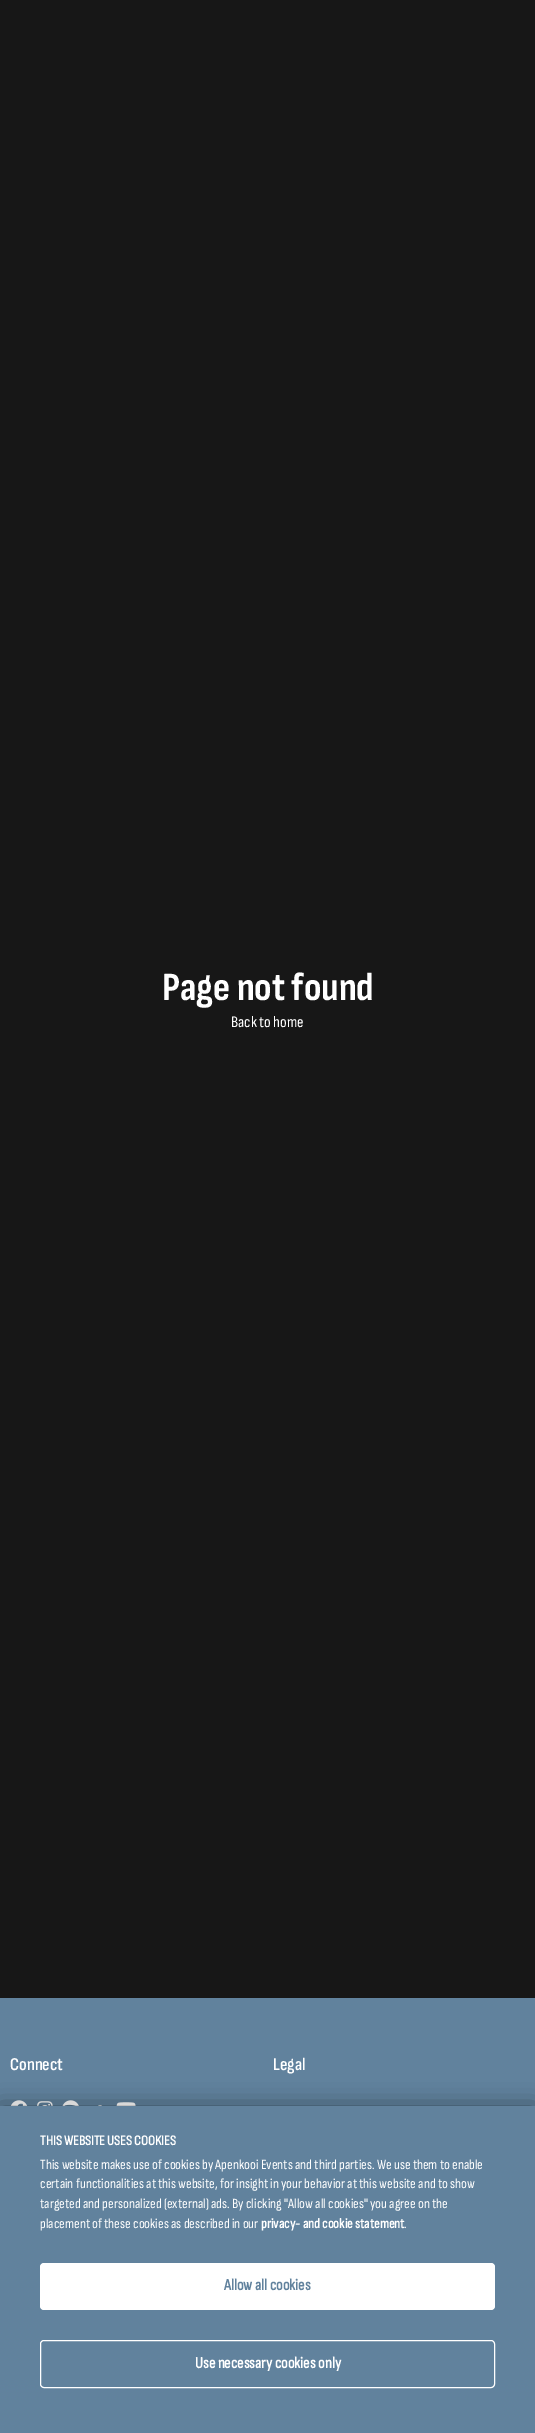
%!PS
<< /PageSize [535 2433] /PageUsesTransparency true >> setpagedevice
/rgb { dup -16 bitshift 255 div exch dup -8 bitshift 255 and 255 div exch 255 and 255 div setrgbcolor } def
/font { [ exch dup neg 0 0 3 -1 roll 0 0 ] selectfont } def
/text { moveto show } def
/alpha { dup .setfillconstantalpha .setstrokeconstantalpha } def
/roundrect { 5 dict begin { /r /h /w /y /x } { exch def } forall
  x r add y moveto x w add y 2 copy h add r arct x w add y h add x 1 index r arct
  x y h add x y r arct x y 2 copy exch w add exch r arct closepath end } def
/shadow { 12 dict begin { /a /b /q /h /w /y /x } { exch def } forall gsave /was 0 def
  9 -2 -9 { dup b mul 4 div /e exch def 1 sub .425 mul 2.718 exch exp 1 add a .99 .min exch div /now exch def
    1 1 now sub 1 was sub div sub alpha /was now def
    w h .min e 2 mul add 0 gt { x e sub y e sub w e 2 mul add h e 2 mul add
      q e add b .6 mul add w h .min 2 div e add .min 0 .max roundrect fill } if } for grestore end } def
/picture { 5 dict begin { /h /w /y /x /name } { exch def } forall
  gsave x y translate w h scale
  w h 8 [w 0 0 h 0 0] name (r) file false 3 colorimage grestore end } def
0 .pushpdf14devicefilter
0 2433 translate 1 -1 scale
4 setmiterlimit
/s1 { /SofiaSansCondensed-Bold 40 font 16#FFFFFF rgb } def
/s2 { /SofiaSansCondensed-Regular 16 font 16#FFFFFF rgb } def
/s3 { /SofiaSansCondensed-SemiBold 18 font 16#FFFFFF rgb } def
/s4 { /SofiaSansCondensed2-Bold 14 font 16#FFFFFF rgb } def
/s5 { /SofiaSansCondensed-Regular 14 font 16#FFFFFF rgb } def
/s6 { /SofiaSansCondensed2-Bold 16 font 16#61829D rgb } def
/s7 { /SofiaSansCondensed2-Bold 16 font 16#FFFFFF rgb } def
16#171717 rgb
0 0 535 2433 rectfill
s1
(Page not found) 162 1000 text
s2
(Back to home) 231 1027 text
16#61829D rgb
0 1998 535 108 rectfill
s3
(Connect) 10 2070 text
(pic1.raw) 10 2100 18 6 picture
(pic2.raw) 37 2101 16 5 picture
(pic3.raw) 62 2100 17 6 picture
(pic4.raw) 98 2105 4 1 picture
(pic5.raw) 116 2102 20 4 picture
(Legal) 273 2070 text
16#000000 rgb
0 2108 535 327 0 11.5 0.5 shadow
16#61829D rgb
0 2106 535 327 rectfill
s4
(THIS WEBSITE USES COOKIES) 40 2145 text
s5
(This website makes use of cookies by Apenkooi Events and third parties. We use them to enable) 40 2169 text
(certain functionalities at this website, for insight in your behavior at this website and to show) 40 2188 text
(targeted and personalized \(external\) ads. By clicking "Allow all cookies" you agree on the) 40 2208 text
(placement of these cookies as described in our) 40 2228 text
s4
(privacy- and cookie statement) 261 2228 text
s5
(.) 404 2228 text
40 2263 455 47 4 roundrect fill
s6
(Allow all cookies) 224 2290 text
16#FFFFFF rgb
40.5 2340.5 454 47 3.5 roundrect stroke
(Use necessary cookies only) 195 2368 text
.poppdf14devicefilter showpage
